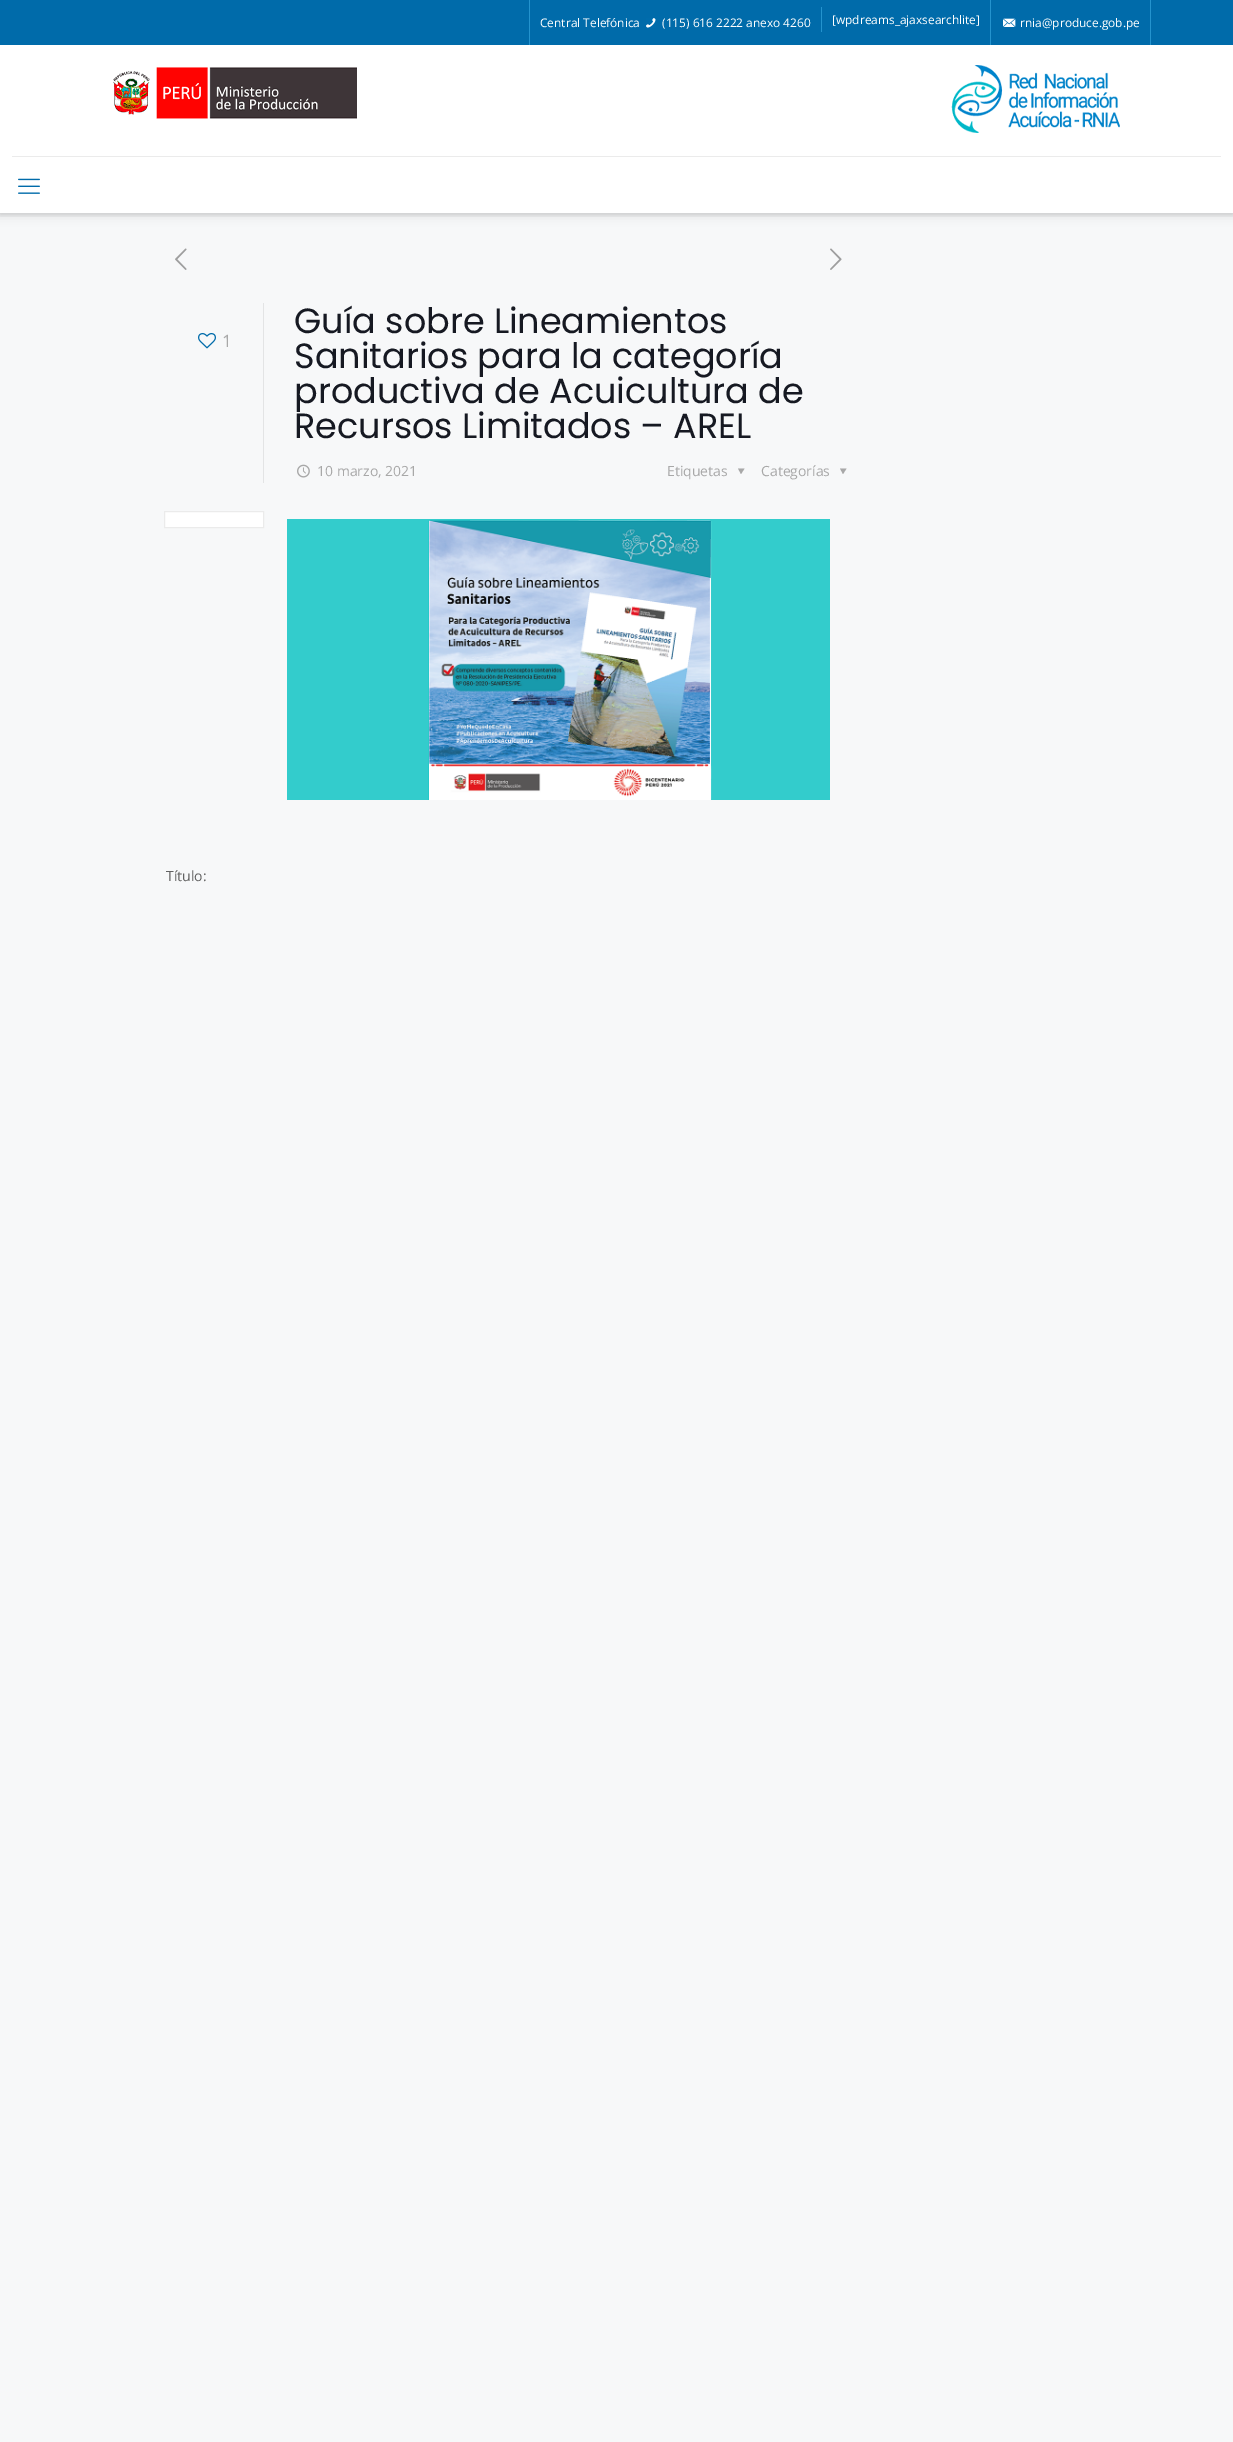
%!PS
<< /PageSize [1233 2442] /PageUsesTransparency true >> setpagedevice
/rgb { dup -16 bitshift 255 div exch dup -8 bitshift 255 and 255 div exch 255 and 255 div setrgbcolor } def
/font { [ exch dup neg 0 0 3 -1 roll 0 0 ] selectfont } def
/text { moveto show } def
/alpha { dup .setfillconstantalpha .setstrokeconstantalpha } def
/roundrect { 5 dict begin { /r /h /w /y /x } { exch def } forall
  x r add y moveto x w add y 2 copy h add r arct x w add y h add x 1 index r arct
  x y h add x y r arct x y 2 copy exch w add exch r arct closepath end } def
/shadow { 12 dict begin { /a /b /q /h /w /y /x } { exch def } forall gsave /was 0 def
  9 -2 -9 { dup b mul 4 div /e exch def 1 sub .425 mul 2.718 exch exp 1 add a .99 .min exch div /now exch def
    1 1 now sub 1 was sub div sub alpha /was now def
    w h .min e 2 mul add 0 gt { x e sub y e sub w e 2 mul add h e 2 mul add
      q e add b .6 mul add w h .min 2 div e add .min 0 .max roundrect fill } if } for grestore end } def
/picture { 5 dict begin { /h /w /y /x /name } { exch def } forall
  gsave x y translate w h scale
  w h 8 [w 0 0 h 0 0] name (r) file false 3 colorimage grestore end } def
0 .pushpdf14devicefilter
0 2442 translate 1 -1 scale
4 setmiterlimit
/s1 { /OpenSans-Regular 11.9 font 16#FFFFFF rgb } def
/s2 { /OpenSans-Regular 17 font 16#A8A8A8 rgb } def
/s3 { /Poppins-Regular 35 font 16#161922 rgb } def
/s4 { /OpenSans-Regular 14 font 16#A8A8A8 rgb } def
/s5 { /OpenSans-Regular 14 font 16#626262 rgb } def
16#F7F8F9 rgb
0 0 1233 2442 rectfill
16#006BAA rgb
0 0 1233 45 rectfill
16#2493CE rgb
529 0 1 45 rectfill
s1
(Central Telefónica) 540 27 text
(pic1.raw) 646 18 10 10 picture
(\(115\) 616 2222 anexo 4260) 662 27 text
16#2493CE rgb
821 7 1 25 rectfill
s1
([wpdreams_ajaxsearchlite]) 832 24 text
16#2493CE rgb
990 0 1 45 rectfill
(pic2.raw) 1003 18 13 9 picture
s1
(rnia@produce.gob.pe) 1020 27 text
16#2493CE rgb
1150 0 1 45 rectfill
gsave
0 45 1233 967 rectclip
16#000000 rgb
-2 44 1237 172 0 5 0.1 shadow
grestore
16#FFFFFF rgb
0 45 1233 168 rectfill
gsave
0 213 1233 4 rectclip
16#000000 rgb
0 47 1233 168 0 2.5 0.1 shadow
grestore
16#EBEBEB rgb
12 156 1209 1 rectfill
(pic3.raw) 113 65 1007 68 picture
(pic4.raw) 18 178 22 16 picture
(pic5.raw) 175 248 12 22 picture
(pic6.raw) 830 248 12 22 picture
(pic7.raw) 198 333 18 16 picture
s2
(1) 222 347 text
16#E3E4E5 rgb
263 303 1 180 rectfill
s3
(Guía sobre Lineamientos) 294 333 text
(Sanitarios para la categoría) 294 368 text
(productiva de Acuicultura de) 294 403 text
(Recursos Limitados – AREL) 294 438 text
(pic8.raw) 297 464 13 14 picture
s4
(10 marzo, 2021) 317 476 text
(Etiquetas) 667 476 text
744.5 468.5 moveto 741 474 lineto 738 468.5 lineto closepath fill
(Categorías) 761 476 text
846.5 468.5 moveto 843 474 lineto 840 468.5 lineto closepath fill
16#FFFFFF rgb
164.5 511.5 moveto 263.5 511.5 lineto 263.5 527.5 lineto 164.5 527.5 lineto closepath gsave fill grestore
16#EBEBEB rgb
stroke
(pic9.raw) 287 519 543 281 picture
s5
(Título:) 166 881 text
.poppdf14devicefilter showpage
